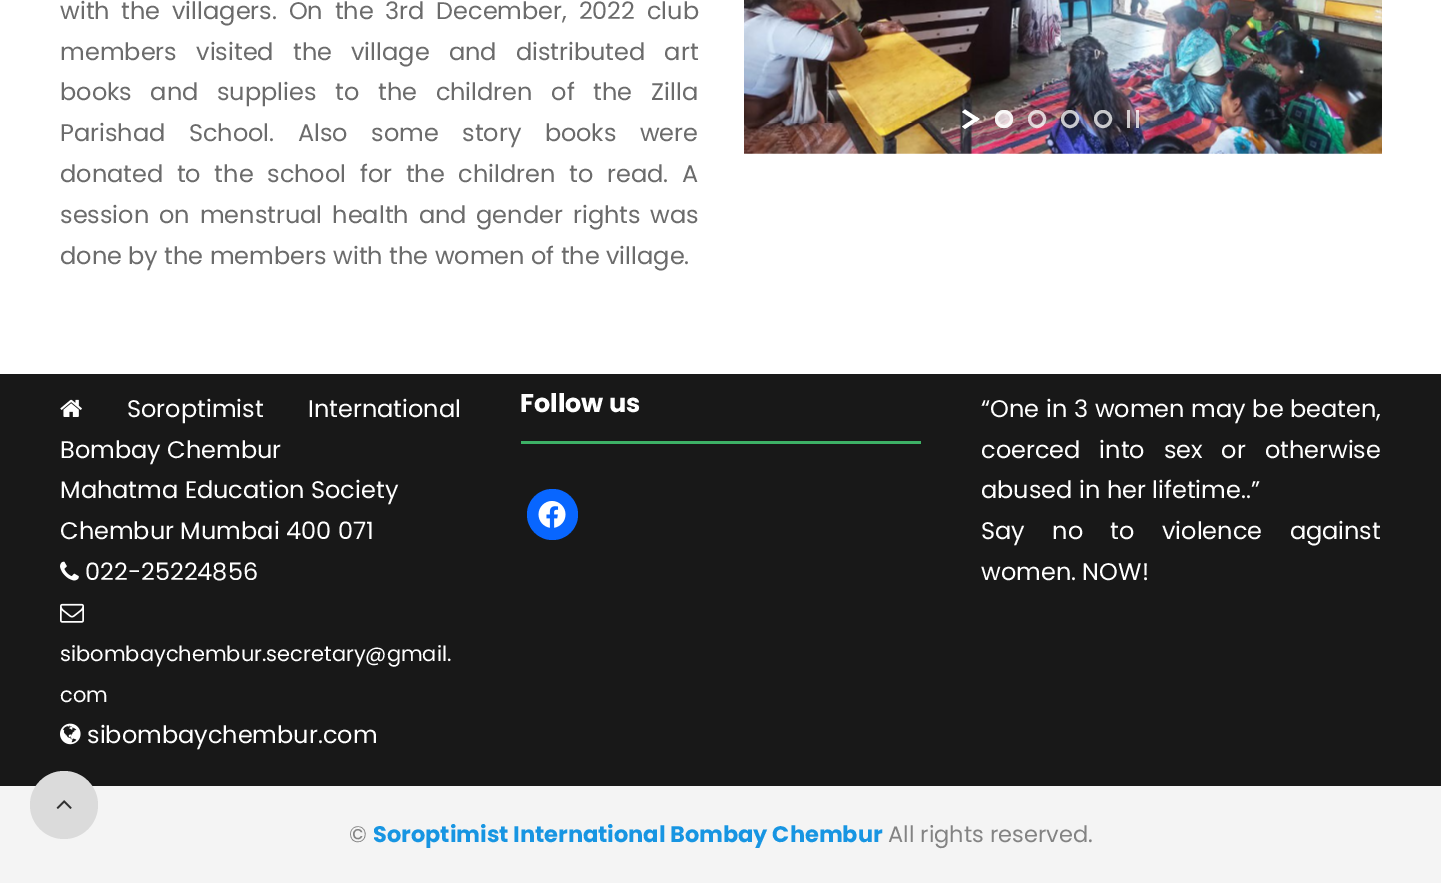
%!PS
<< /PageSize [1441 883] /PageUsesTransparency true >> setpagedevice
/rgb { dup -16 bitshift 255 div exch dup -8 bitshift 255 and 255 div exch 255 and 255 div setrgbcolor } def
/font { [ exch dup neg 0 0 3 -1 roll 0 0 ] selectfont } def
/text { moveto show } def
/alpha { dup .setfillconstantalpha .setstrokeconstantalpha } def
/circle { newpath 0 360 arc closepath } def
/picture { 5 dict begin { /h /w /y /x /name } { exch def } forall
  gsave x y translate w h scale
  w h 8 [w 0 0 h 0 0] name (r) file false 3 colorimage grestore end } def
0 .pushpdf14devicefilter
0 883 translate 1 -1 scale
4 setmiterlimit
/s1 { /Poppins-Regular 24 font 16#6B6B6B rgb } def
/s2 { /Poppins-Regular 24 font 16#FFFFFF rgb } def
/s3 { /Poppins-Regular 21 font 16#FFFFFF rgb } def
/s4 { /Poppins-Bold 25.5 font 16#FFFFFF rgb } def
/s5 { /Poppins-Regular 22.5 font 16#838383 rgb } def
/s6 { /Poppins-Bold 22.5 font 16#1795E2 rgb } def
16#FFFFFF rgb
0 0 1441 883 rectfill
/Poppins-Regular 24 font
16#6B6B6B rgb
60 19 moveto 5.25 0 32 (with the villagers. On the 3rd December, 2022 club) widthshow
60 60 moveto 12.75 0 32 (members visited the village and distributed art) widthshow
60 100 moveto 12.25 0 32 (books and supplies to the children of the Zilla) widthshow
60 141 moveto 17 0 32 (Parishad School. Also some story books were) widthshow
60 182 moveto 7.25 0 32 (donated to the school for the children to read. A) widthshow
60 223 moveto 3.5 0 32 (session on menstrual health and gender rights was) widthshow
(done by the members with the women of the village.) 60 264 text
(pic1.raw) 744 0 638 154 picture
16#FFFFFF rgb
965 109.5 moveto 979.5 119 lineto 976.5 121.5 lineto 962 112 lineto closepath fill
976.5 117 moveto 979.5 119 lineto 965 129 lineto 962 126.5 lineto closepath fill
0.75 alpha
1004 119 9 circle fill
3 setlinewidth
1004 119 7.5 circle stroke
1037 119 7.5 circle stroke
1070 119 7.5 circle stroke
1103 119 7.5 circle stroke
1136 110 3 18 rectfill
1127 110 3 18 rectfill
1 alpha
16#181818 rgb
0 374 1441 412 rectfill
(pic2.raw) 60 399 22 18 picture
16#FFFFFF rgb
127 417 moveto 38 0 32 (Soroptimist International) widthshow
(Bombay Chembur) 60 458 text
(Mahatma Education Society) 60 498 text
(Chembur Mumbai 400 071) 60 539 text
(pic3.raw) 60 561 19 20 picture
(022-25224856) 85 580 text
(pic4.raw) 60 603 24 20 picture
s3
(sibombaychembur.secretary@gmail.) 60 661 text
(com) 60 702 text
(pic5.raw) 60 723 21 22 picture
s2
(sibombaychembur.com) 87 743 text
16#3DB166 rgb
521 441 400 3 rectfill
s4
(Follow us) 520 412 text
16#0866FF rgb
552.5 514.5 25.5 circle fill
(pic6.raw) 538 501 28 27 picture
/Poppins-Regular 24 font
16#FFFFFF rgb
981 417 moveto 0.25 0 32 (“One in 3 women may be beaten,) widthshow
981 458 moveto 12.5 0 32 (coerced into sex or otherwise) widthshow
(abused in her lifetime..”) 981 498 text
981 539 moveto 21 0 32 (Say no to violence against) widthshow
(women. NOW!) 981 580 text
16#F4F4F4 rgb
0 786 1441 97 rectfill
s5
(©) 349 842 text
s6
(Soroptimist International Bombay Chembur) 373 842 text
s5
(All rights reserved.) 888 842 text
16#DBDBDB rgb
64 805 34 circle fill
(pic7.raw) 56 800 16 9 picture
.poppdf14devicefilter showpage
